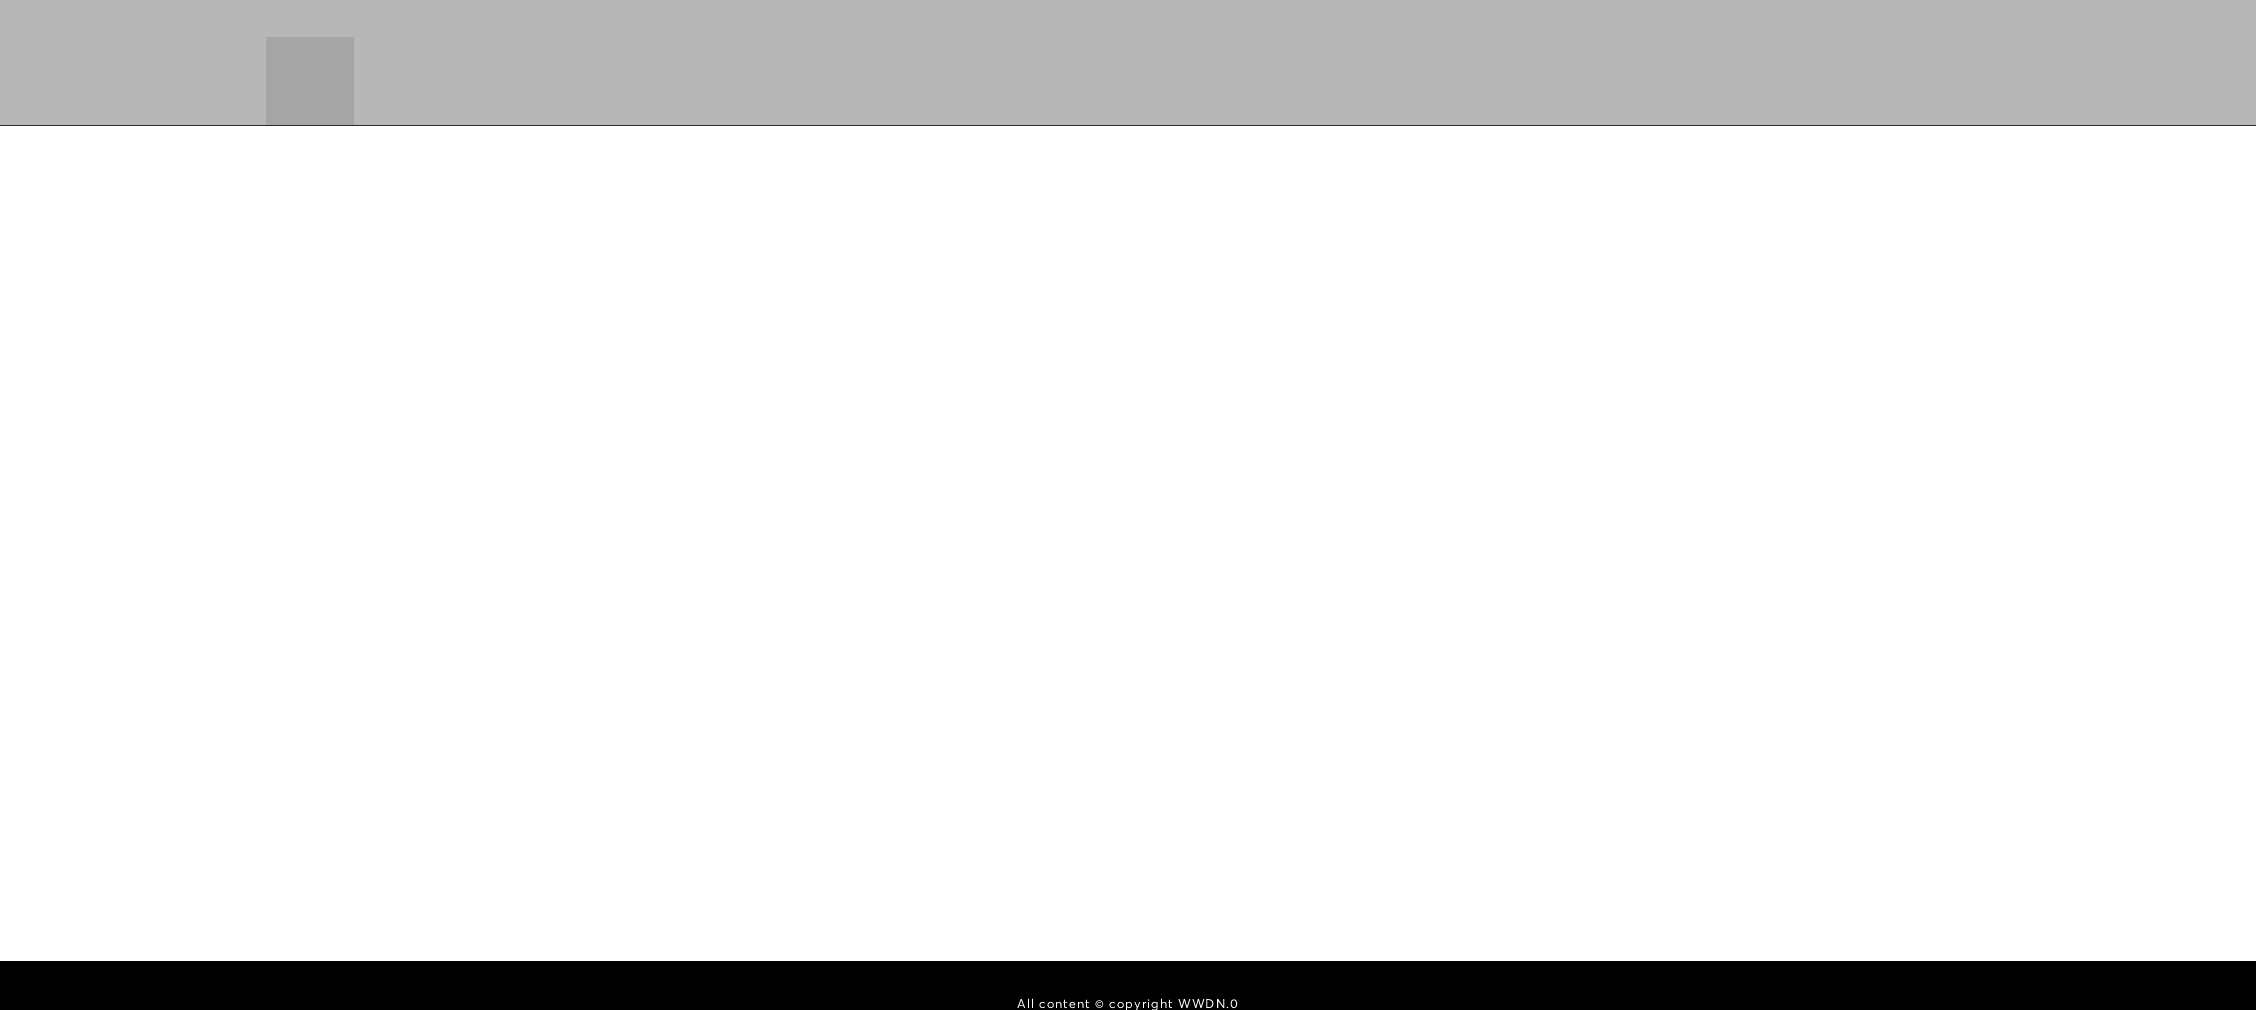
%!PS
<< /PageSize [2256 1010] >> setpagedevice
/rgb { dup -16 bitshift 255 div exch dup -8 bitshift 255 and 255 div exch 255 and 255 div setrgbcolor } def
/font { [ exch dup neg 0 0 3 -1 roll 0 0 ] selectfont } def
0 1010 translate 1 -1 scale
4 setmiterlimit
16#FFFFFF rgb
0 0 2256 1010 rectfill
16#B7B7B7 rgb
0 0 2256 125 rectfill
16#043556 rgb
0 125 2256 1 rectfill
16#A5A5A5 rgb
266 37 88 88 rectfill
16#000000 rgb
0 961 2256 49 rectfill
/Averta-Regular 12.5 font
16#FFFFFF rgb
1017 1008 moveto 1 0 (All content © copyright WWDN.0) ashow
showpage
